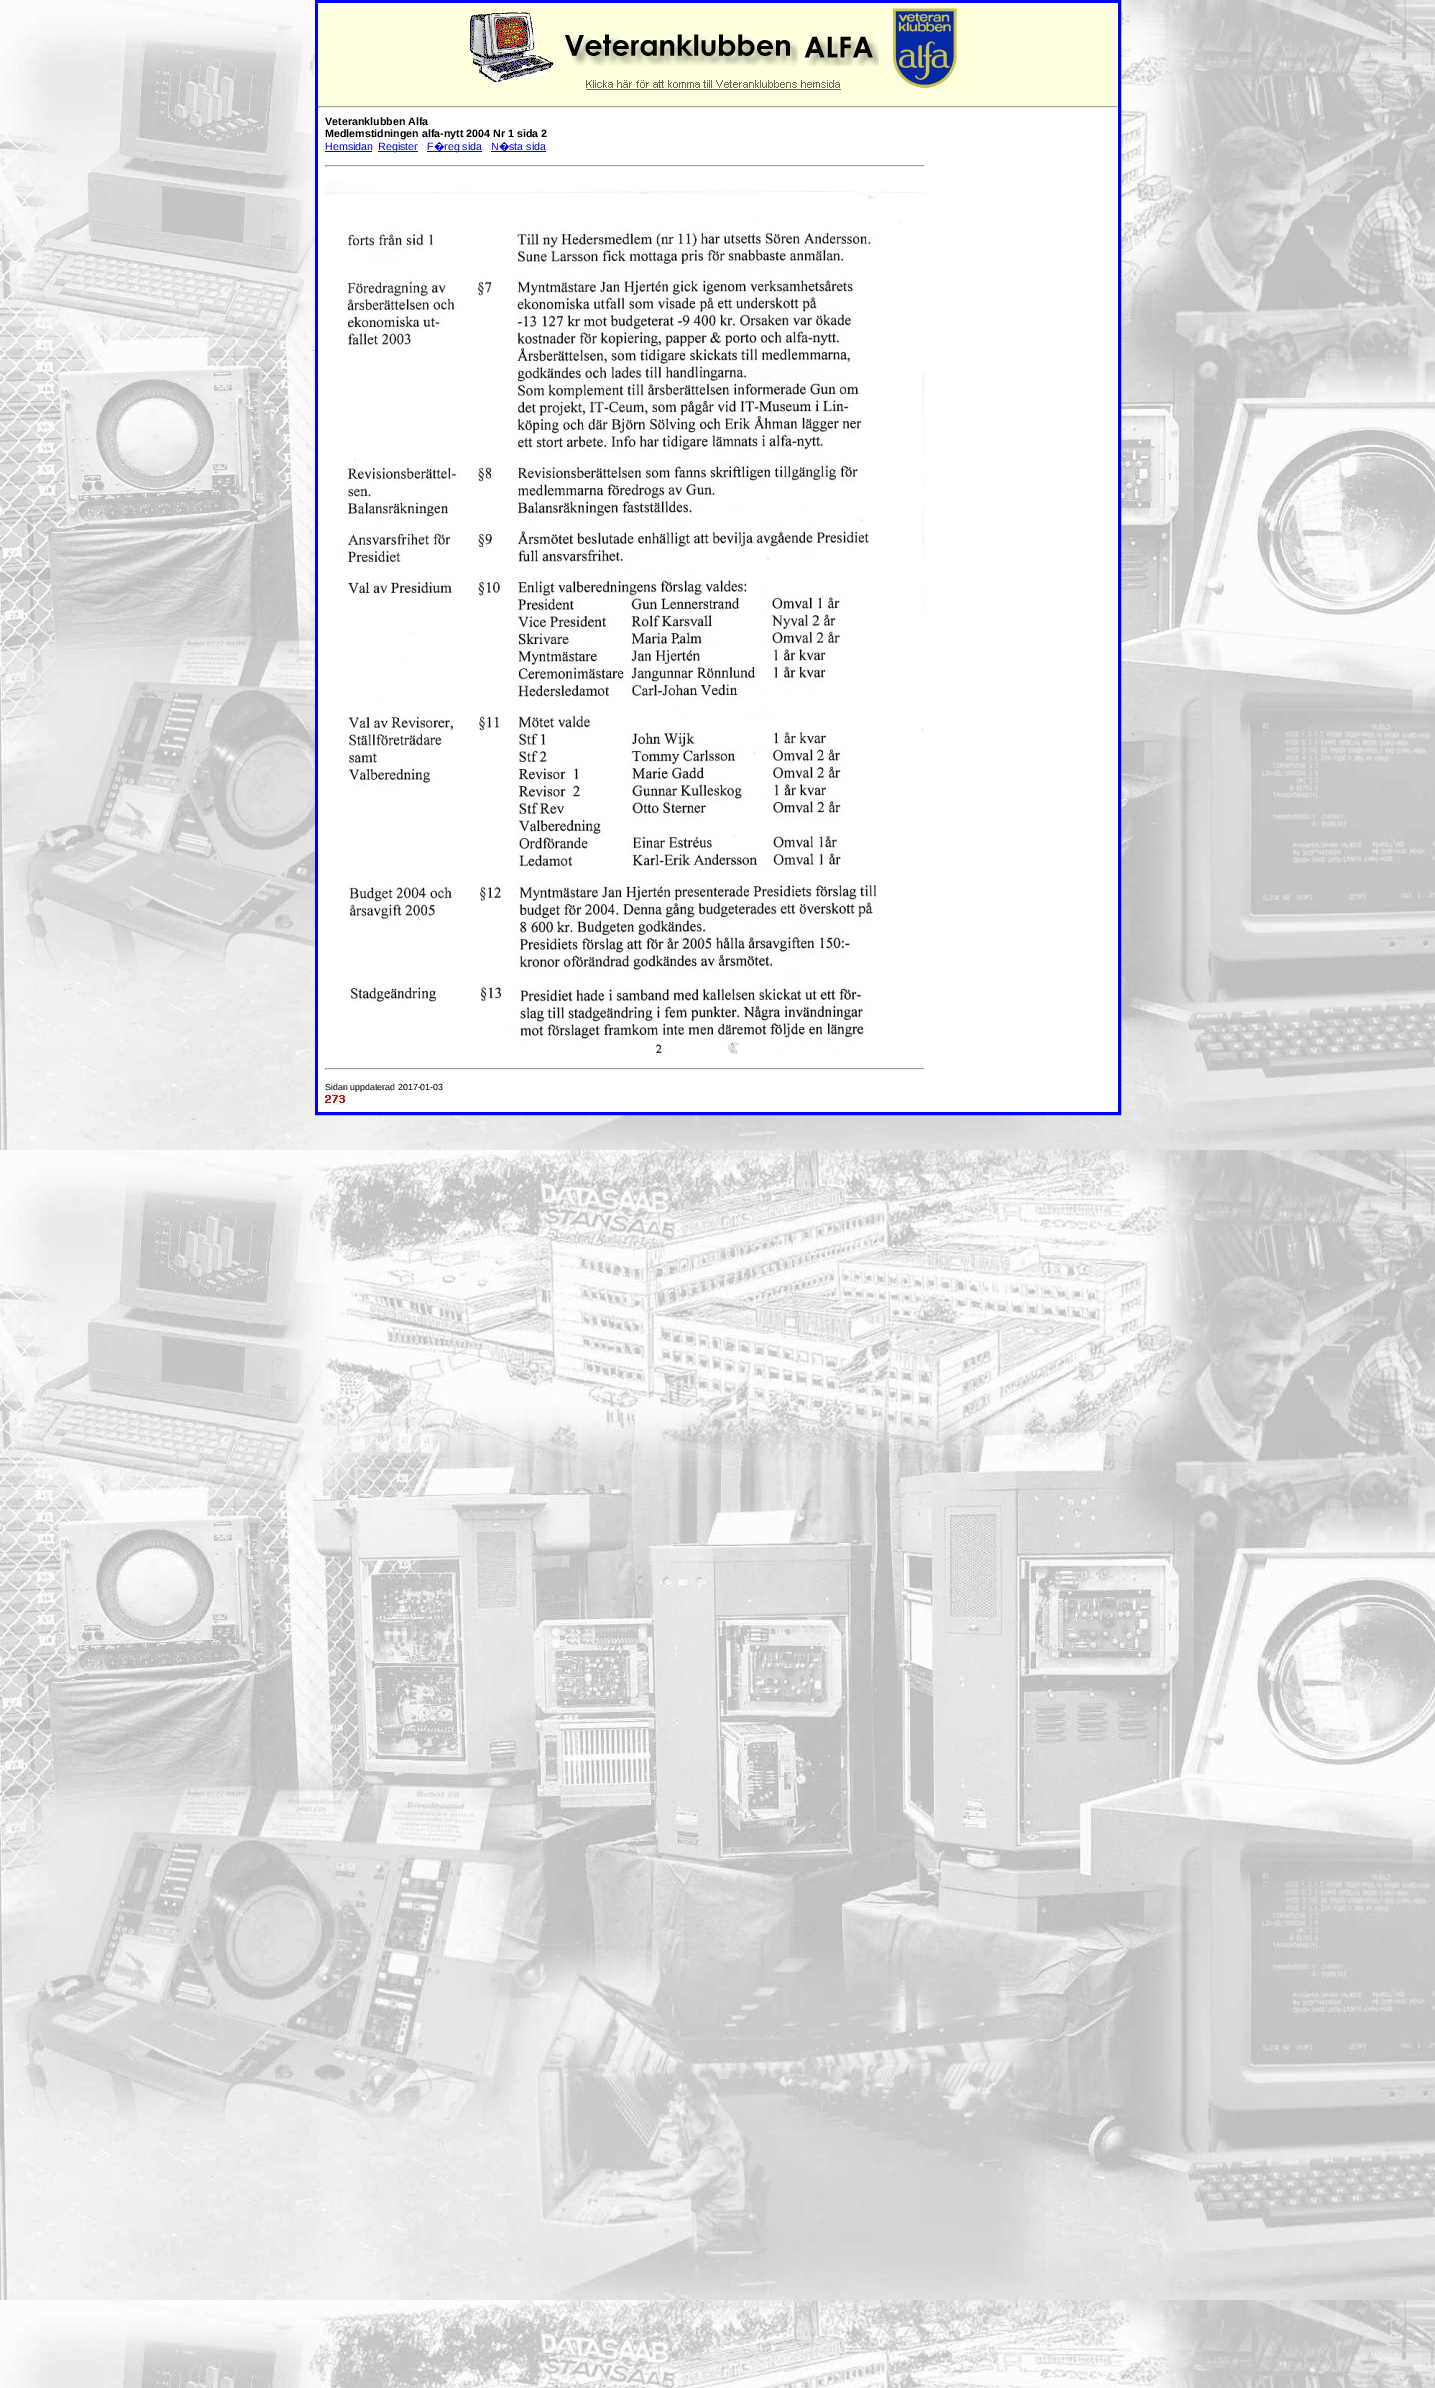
%!PS
<< /PageSize [1435 2388] >> setpagedevice
/rgb { dup -16 bitshift 255 div exch dup -8 bitshift 255 and 255 div exch 255 and 255 div setrgbcolor } def
/font { [ exch dup neg 0 0 3 -1 roll 0 0 ] selectfont } def
/text { moveto show } def
/picture { 5 dict begin { /h /w /y /x /name } { exch def } forall
  gsave x y translate w h scale
  w h 8 [w 0 0 h 0 0] name (r) file false 3 colorimage grestore end } def
0 2388 translate 1 -1 scale
4 setmiterlimit
/s1 { /LiberationSans-Bold 10.7 font 16#000000 rgb } def
/s2 { /LiberationSans-Regular 10.7 font 16#0000EE rgb } def
/s3 { /NotoSans-Regular 10.7 font 16#0000EE rgb } def
/s4 { /LiberationSans-Regular 8.9 font 16#000000 rgb } def
16#FFFFFF rgb
0 0 1435 2388 rectfill
(pic1.raw) 0 0 1435 2388 picture
16#0000FF rgb
3 setlinewidth
316.5 1.5 803 1112 rectstroke
16#FFFFE0 rgb
318 3 800 103 rectfill
(pic2.raw) 469 7 513 83 picture
16#9F9F9F rgb
318 106 800 1 rectfill
16#EEEEEE rgb
1117 106 1 2 rectfill
318 107 800 1 rectfill
16#9F9F9F rgb
318 106 1 2 rectfill
16#FFFFFF rgb
318 108 800 1004 rectfill
s1
(Veteranklubben Alfa) 325 125 text
(Medlemstidningen alfa-nytt 2004 Nr 1 sida 2) 325 137 text
s2
(Hemsidan) 325 150 text
325 151 47 1 rectfill
378 151 40 1 rectfill
(Register) 378 150 text
(F) 427 150 text
427 151 55 1 rectfill
s3
(�) 434 150 text
s2
(reg sida) 444 150 text
(N) 491 150 text
491 151 55 1 rectfill
s3
(�) 499 150 text
s2
(sta sida) 509 150 text
16#9F9F9F rgb
325 165 600 1 rectfill
16#EEEEEE rgb
924 165 1 2 rectfill
325 166 600 1 rectfill
16#9F9F9F rgb
325 165 1 2 rectfill
(pic3.raw) 325 181 600 878 picture
325 1068 600 1 rectfill
16#EEEEEE rgb
924 1068 1 2 rectfill
325 1069 600 1 rectfill
16#9F9F9F rgb
325 1068 1 2 rectfill
s4
(Sidan uppdaterad 2017-01-03) 325 1090 text
(pic4.raw) 325 1092 21 13 picture
showpage
